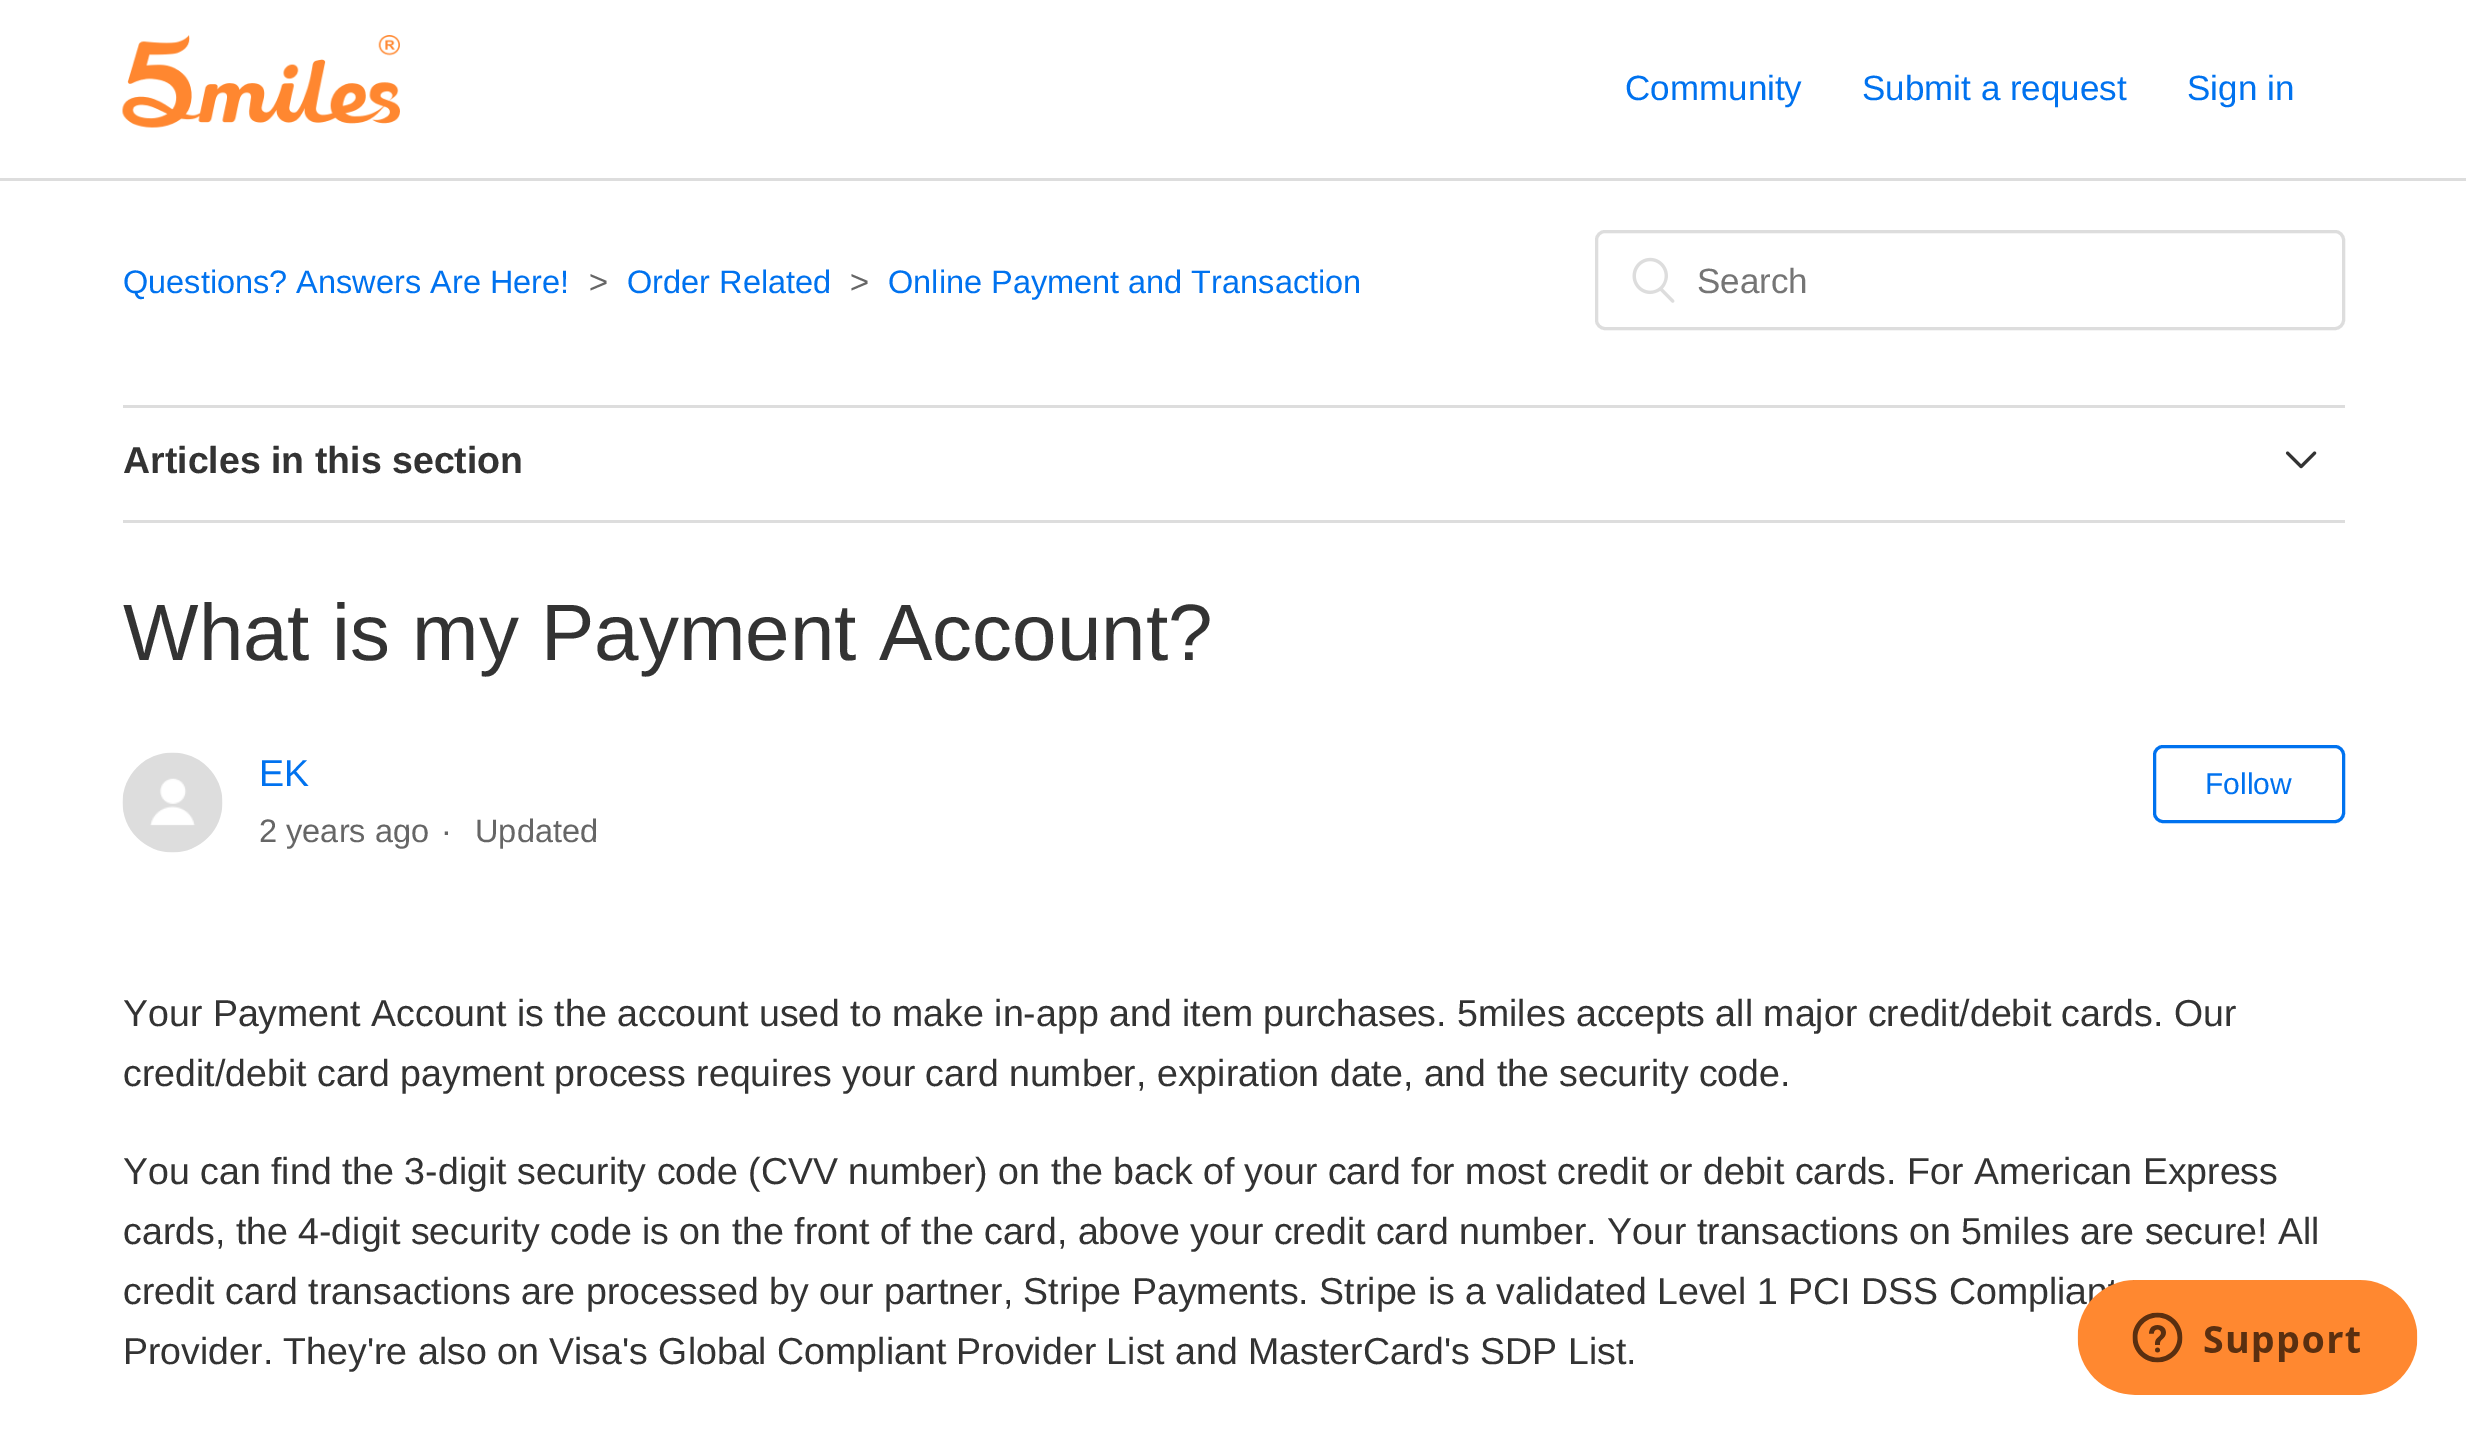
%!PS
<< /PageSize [2466 1430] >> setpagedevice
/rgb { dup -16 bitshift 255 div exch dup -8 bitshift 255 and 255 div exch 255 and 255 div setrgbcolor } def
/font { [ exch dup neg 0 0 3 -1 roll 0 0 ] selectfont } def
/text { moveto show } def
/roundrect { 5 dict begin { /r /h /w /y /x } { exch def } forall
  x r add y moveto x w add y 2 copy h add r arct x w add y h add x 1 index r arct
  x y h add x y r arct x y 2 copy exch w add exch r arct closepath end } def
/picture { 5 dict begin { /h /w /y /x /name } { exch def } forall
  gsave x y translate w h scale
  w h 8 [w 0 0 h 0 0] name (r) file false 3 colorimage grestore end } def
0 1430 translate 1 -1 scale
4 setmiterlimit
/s1 { /LiberationSans-Regular 35 font 16#0072EF rgb } def
/s2 { /LiberationSans-Regular 32.5 font 16#0072EF rgb } def
/s3 { /LiberationSans-Regular 32.5 font 16#666666 rgb } def
/s4 { /LiberationSans-Regular 35 font 16#757575 rgb } def
/s5 { /LiberationSans-Bold 37.5 font 16#333333 rgb } def
/s6 { /LiberationSans-Regular 80 font 16#333333 rgb } def
/s7 { /LiberationSans-Regular 37.5 font 16#0072EF rgb } def
/s8 { /LiberationSans-Regular 30 font 16#0072EF rgb } def
/s9 { /LiberationSans-Regular 37.5 font 16#333333 rgb } def
16#FFFFFF rgb
0 0 2466 1430 rectfill
(pic1.raw) 122 35 278 93 picture
s1
(Community) 1625 100 text
(Submit a request) 1862 100 text
(Sign in) 2187 100 text
16#DDDDDD rgb
0 178 2466 3 rectfill
s2
(Questions? Answers Are Here!) 123 293 text
s3
(>) 589 293 text
s2
(Order Related) 627 293 text
s3
(>) 850 293 text
s2
(Online Payment and Transaction) 888 293 text
16#DDDDDD rgb
3 setlinewidth
1596.5 231.5 747 97 8.5 roundrect stroke
(pic2.raw) 1632 257 43 46 picture
s4
(Search) 1697 293 text
16#DDDDDD rgb
123 405 2222 3 rectfill
123 520 2222 3 rectfill
s5
(Articles in this section) 123 473 text
(pic3.raw) 2285 451 32 18 picture
s6
(What is my Payment Account?) 123 660 text
(pic4.raw) 122 752 101 101 picture
s7
(EK) 259 786 text
s3
(2 years ago) 259 842 text
(·) 441 842 text
(Updated) 475 842 text
16#0072EF rgb
2154.5 746.5 189 75 8.5 roundrect stroke
s8
(Follow) 2205 794 text
s9
(Your Payment Account is the account used to make in-app and item purchases. 5miles accepts all major credit/debit cards. Our) 123 1026 text
(credit/debit card payment process requires your card number, expiration date, and the security code.) 123 1086 text
(You can find the 3-digit security code \(CVV number\) on the back of your card for most credit or debit cards. For American Express) 123 1184 text
(cards, the 4-digit security code is on the front of the card, above your credit card number. Your transactions on 5miles are secure! All) 123 1244 text
(credit card transactions are processed by our partner, Stripe Payments. Stripe is a validated Level 1 PCI DSS Complia) 123 1304 text
(Provider. They're also on Visa's Global Compliant Provider List and MasterCard's SDP List.) 123 1364 text
(pic5.raw) 2077 1280 341 115 picture
showpage
